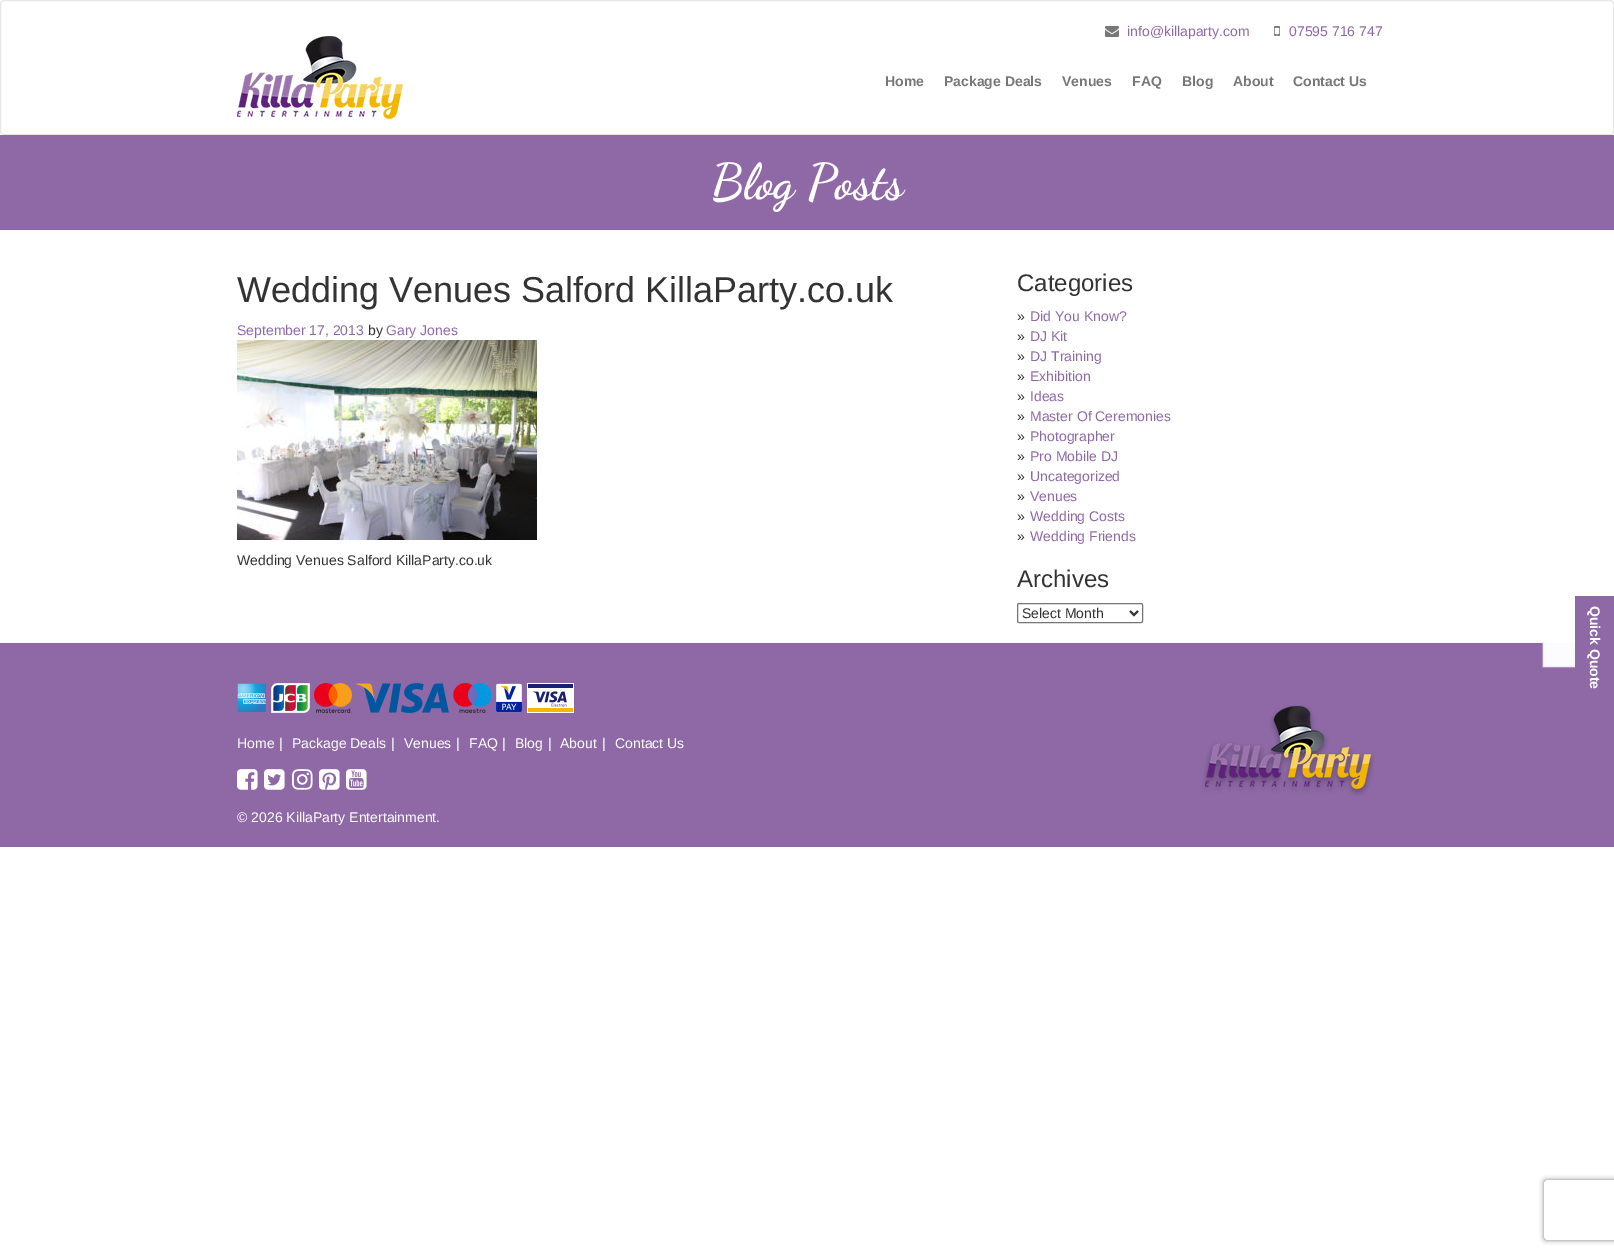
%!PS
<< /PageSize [1614 1254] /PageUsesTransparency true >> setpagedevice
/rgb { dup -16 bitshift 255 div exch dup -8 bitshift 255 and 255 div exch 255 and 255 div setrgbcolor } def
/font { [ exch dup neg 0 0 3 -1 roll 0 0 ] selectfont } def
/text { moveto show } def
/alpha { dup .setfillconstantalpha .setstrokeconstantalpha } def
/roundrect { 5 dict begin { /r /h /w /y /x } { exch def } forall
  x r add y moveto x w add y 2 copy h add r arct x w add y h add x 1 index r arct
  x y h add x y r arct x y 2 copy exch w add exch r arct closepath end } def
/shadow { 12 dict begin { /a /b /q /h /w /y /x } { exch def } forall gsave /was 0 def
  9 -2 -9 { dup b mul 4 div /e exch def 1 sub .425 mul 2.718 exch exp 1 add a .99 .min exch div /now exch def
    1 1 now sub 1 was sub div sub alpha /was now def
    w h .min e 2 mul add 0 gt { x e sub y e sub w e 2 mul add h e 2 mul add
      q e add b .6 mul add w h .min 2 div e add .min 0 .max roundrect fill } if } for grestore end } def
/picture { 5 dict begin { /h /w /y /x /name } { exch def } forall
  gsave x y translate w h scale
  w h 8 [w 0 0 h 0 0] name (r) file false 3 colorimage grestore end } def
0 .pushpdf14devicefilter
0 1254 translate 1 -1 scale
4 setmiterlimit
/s1 { /LiberationSans-Regular 14 font 16#8E69A6 rgb } def
/s2 { /LiberationSans-Bold 14 font 16#777777 rgb } def
/s3 { /DancingScript-Bold 50 font 16#FFFFFF rgb } def
/s4 { /LiberationSans-Regular 36 font 16#333333 rgb } def
/s5 { /LiberationSans-Regular 14 font 16#333333 rgb } def
/s6 { /LiberationSans-Regular 24 font 16#333333 rgb } def
/s7 { /LiberationSans-Regular 14 font 16#FFFFFF rgb } def
16#FFFFFF rgb
0 0 1614 1254 rectfill
16#E7E7E7 rgb
0.5 0.5 1613 134 3.5 roundrect stroke
(pic1.raw) 1105 26 14 11 picture
s1
(info@killaparty.com) 1127 36 text
(pic2.raw) 1274 26 6 10 picture
(07595 716 747) 1289 36 text
(pic3.raw) 237 36 166 83 picture
s2
(Home) 885 86 text
(Package Deals) 944 86 text
(Venues) 1062 86 text
(FAQ) 1132 86 text
(Blog) 1182 86 text
(About) 1233 86 text
(Contact Us) 1293 86 text
16#8E69A6 rgb
0 135 1614 95 rectfill
s3
(Blog Posts) 711 198 text
s4
(Wedding Venues Salford KillaParty.co.uk) 237 302 text
s1
(September 17, 2013) 237 335 text
s5
(by) 368 335 text
s1
(Gary Jones) 386 335 text
(pic4.raw) 237 340 300 200 picture
s5
(Wedding Venues Salford KillaParty.co.uk) 237 565 text
s6
(Categories) 1017 291 text
s5
(») 1017 321 text
s1
(Did You Know?) 1030 321 text
s5
(») 1017 341 text
s1
(DJ Kit) 1030 341 text
s5
(») 1017 361 text
s1
(DJ Training) 1030 361 text
s5
(») 1017 381 text
s1
(Exhibition) 1030 381 text
s5
(») 1017 401 text
s1
(Ideas) 1030 401 text
s5
(») 1017 421 text
s1
(Master Of Ceremonies) 1030 421 text
s5
(») 1017 441 text
s1
(Photographer) 1030 441 text
s5
(») 1017 461 text
s1
(Pro Mobile DJ) 1030 461 text
s5
(») 1017 481 text
s1
(Uncategorized) 1030 481 text
s5
(») 1017 501 text
s1
(Venues) 1030 501 text
s5
(») 1017 521 text
s1
(Wedding Costs) 1030 521 text
s5
(») 1017 541 text
s1
(Wedding Friends) 1030 541 text
s6
(Archives) 1017 587 text
16#767676 rgb
1017.5 603.5 125 19 1.5 roundrect stroke
16#333333 rgb
2 setlinewidth
1130 611 moveto 1134 615 lineto 1138 611 lineto stroke
s5
(Select Month) 1022 618 text
16#8E69A6 rgb
0 643 1614 204 rectfill
16#FFFFFF rgb
1543 627 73 40 0 0.5 1 shadow
16#8E69A6 rgb
1575 596 39 72 rectfill
/LiberationSans-Bold 14 font
16#FFFFFF rgb
gsave 1590 606 translate 90 rotate 0 0 moveto (Quick Quote) show grestore
(pic5.raw) 237 683 29 30 picture
(pic6.raw) 271 683 39 30 picture
(pic7.raw) 314 683 38 30 picture
(pic8.raw) 356 683 93 30 picture
(pic9.raw) 453 683 38 30 picture
(pic10.raw) 496 683 26 30 picture
(pic11.raw) 527 683 47 30 picture
s7
(Home) 237 748 text
(|) 279 748 text
(Package Deals) 292 748 text
(|) 391 748 text
(Venues) 404 748 text
(|) 456 748 text
(FAQ) 469 748 text
(|) 502 748 text
(Blog) 515 748 text
(|) 548 748 text
(About) 560 748 text
(|) 602 748 text
(Contact Us) 615 748 text
(pic12.raw) 237 769 21 21 picture
(pic13.raw) 264 769 21 21 picture
(pic14.raw) 292 769 21 21 picture
(pic15.raw) 319 769 21 21 picture
(pic16.raw) 346 769 21 21 picture
(© 2026 KillaParty Entertainment.) 237 822 text
(pic17.raw) 1202 705 172 91 picture
gsave
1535 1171 moveto 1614 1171 lineto 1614 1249 lineto 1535 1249 lineto closepath 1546 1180 moveto 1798 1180 lineto 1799 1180 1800 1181 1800 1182 curveto 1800 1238 lineto 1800 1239 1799 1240 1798 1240 curveto 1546 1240 lineto 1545 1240 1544 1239 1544 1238 curveto 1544 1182 lineto 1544 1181 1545 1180 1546 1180 curveto closepath eoclip newpath
16#808080 rgb
1544 1180 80 60 2 2.5 1 shadow
grestore
.poppdf14devicefilter showpage
